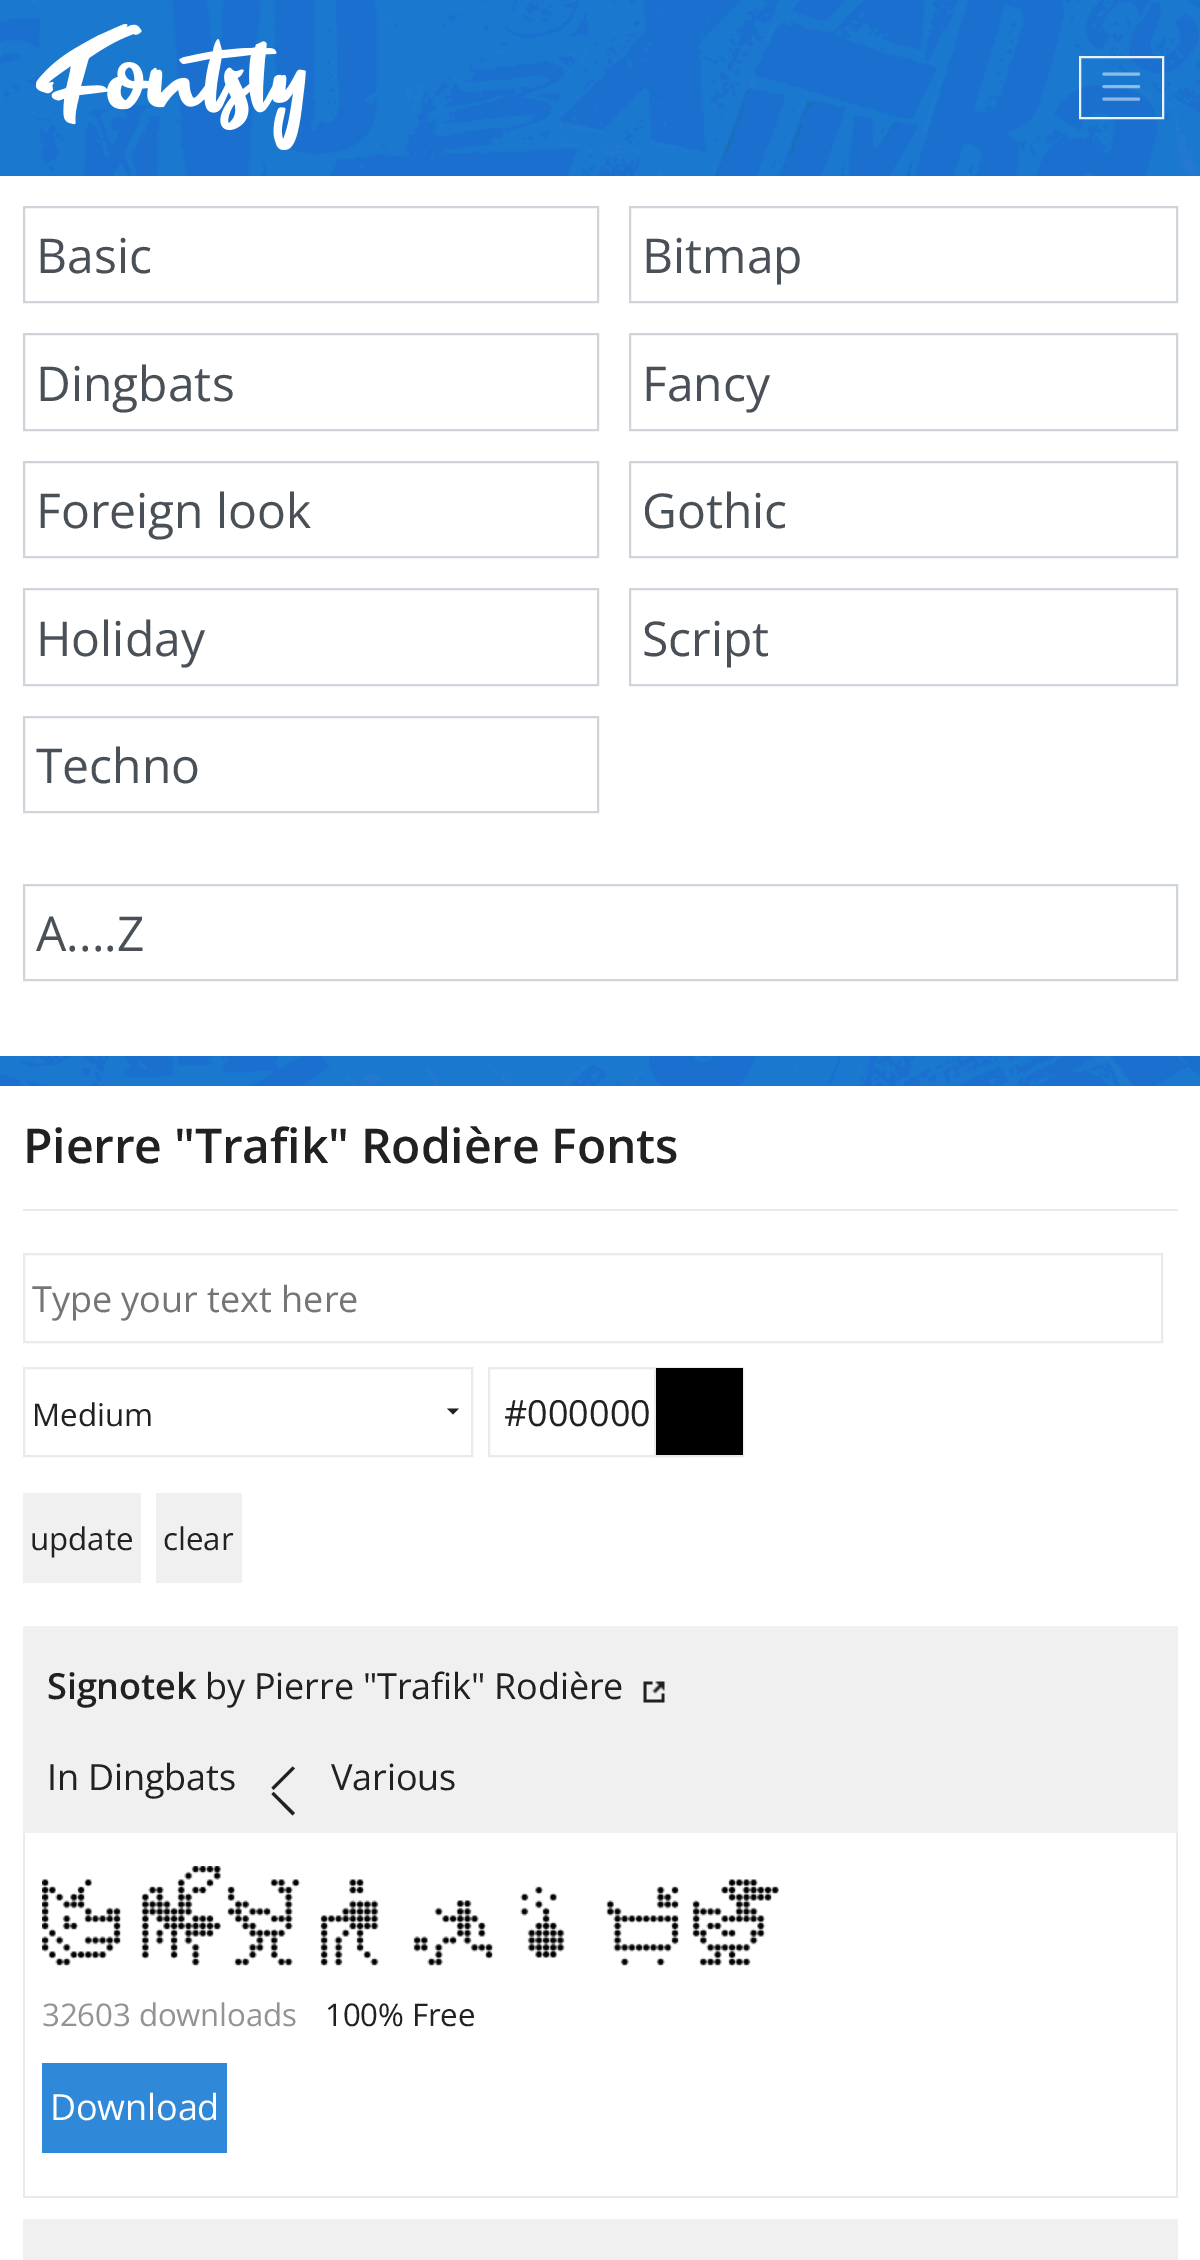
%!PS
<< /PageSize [1200 2260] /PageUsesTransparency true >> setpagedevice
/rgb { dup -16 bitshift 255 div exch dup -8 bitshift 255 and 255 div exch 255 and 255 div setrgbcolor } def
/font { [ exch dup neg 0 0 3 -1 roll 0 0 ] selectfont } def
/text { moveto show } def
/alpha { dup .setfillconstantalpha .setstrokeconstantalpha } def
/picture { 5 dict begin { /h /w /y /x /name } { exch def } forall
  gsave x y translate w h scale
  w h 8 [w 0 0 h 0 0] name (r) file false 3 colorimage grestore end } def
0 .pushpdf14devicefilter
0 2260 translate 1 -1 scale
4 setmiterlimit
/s1 { /OpenSans-Regular 48 font 16#495057 rgb } def
/s2 { /OpenSans-Regular 36 font 16#757575 rgb } def
/s3 { /OpenSans-Regular 31.25 font 16#212121 rgb } def
/s4 { /OpenSans-Regular 36 font 16#212121 rgb } def
16#FFFFFF rgb
0 0 1200 2260 rectfill
(pic2.raw) 0 0 1200 1086 picture
(pic1.raw) 36 24 270 126 picture
0.9 alpha
2 setlinewidth
1080 57 83 61 rectstroke
0.5 alpha
3.1 setlinewidth
1 setlinecap
1104 74 moveto 1138.5 74 lineto 1104 86.5 moveto 1138.5 86.5 lineto 1104 99 moveto 1138.5 99 lineto stroke
1 alpha
0 176 1200 880 rectfill
16#CED4DA rgb
2 setlinewidth
0 setlinecap
24 207 574 95 rectstroke
s1
(Basic) 36 273 text
16#CED4DA rgb
630 207 547 95 rectstroke
s1
(Bitmap) 642 273 text
16#CED4DA rgb
24 334 574 96 rectstroke
s1
(Dingbats) 36 401 text
16#CED4DA rgb
630 334 547 96 rectstroke
s1
(Fancy) 642 401 text
16#CED4DA rgb
24 462 574 95 rectstroke
s1
(Foreign look) 36 528 text
16#CED4DA rgb
630 462 547 95 rectstroke
s1
(Gothic) 642 528 text
16#CED4DA rgb
24 589 574 96 rectstroke
s1
(Holiday) 36 656 text
16#CED4DA rgb
630 589 547 96 rectstroke
s1
(Script) 642 656 text
16#CED4DA rgb
24 717 574 95 rectstroke
s1
(Techno) 36 783 text
16#CED4DA rgb
24 885 1153 95 rectstroke
s1
(A....Z) 36 951 text
16#EAEAEA rgb
23 1209 1155 2 rectfill
/OpenSans-SemiBold 48 font
16#212121 rgb
23 1163 moveto -0.15 0 (Pierre "Trafik" Rodière Fonts) ashow
16#EAEAEA rgb
24 1254 1138 88 rectstroke
gsave
32 1274 1122 49 rectclip
s2
(Type your text here) 32 1312 text
grestore
24 1368 448 88 rectstroke
s3
(Medium) 32 1426 text
447 1408.5 moveto 459 1408.5 lineto 453 1414.5 lineto closepath fill
16#EAEAEA rgb
489 1368 194 88 rectstroke
s4
(#000000) 504 1426 text
16#EAEAEA rgb
655 1368 88 88 rectstroke
16#000000 rgb
656 1368 87 87 rectfill
16#F0F0F0 rgb
23 1493 118 90 rectfill
s3
(update) 30 1550 text
16#F0F0F0 rgb
156 1493 86 90 rectfill
s3
(clear) 163 1550 text
16#F0F0F0 rgb
23 1626 1155 207 rectfill
/OpenSans-SemiBold 36 font
16#212121 rgb
47 1699 moveto -0.15 0 (Signotek) ashow
/OpenSans-Regular 36 font
205 1699 moveto -0.15 0 (by Pierre "Trafik" Rodière) ashow
(pic3.raw) 643 1681 22 22 picture
47 1790 moveto -0.15 0 (In Dingbats) ashow
292.5 1766.5 moveto 295 1768.5 lineto 273.5 1790 lineto 271.5 1787.5 lineto closepath 271.5 1794 moveto 273.5 1792 lineto 295 1813 lineto 292.5 1815.5 lineto closepath fill
331 1790 moveto -0.15 0 (Various) ashow
16#EAEAEA rgb
1176 1833 2 365 rectfill
23 2196 1155 2 rectfill
23 1833 2 365 rectfill
(pic4.raw) 42 1866 737 100 picture
/OpenSans-Regular 31.25 font
16#939393 rgb
42 2026 moveto -0.15 0 (32603 downloads) ashow
16#212121 rgb
325 2026 moveto -0.15 0 (100% Free) ashow
16#2F88D8 rgb
42 2063 185 90 rectfill
/OpenSans-Regular 36 font
16#FFFFFF rgb
50 2120 moveto -0.15 0 (Download) ashow
16#F0F0F0 rgb
23 2219 1155 41 rectfill
.poppdf14devicefilter showpage
